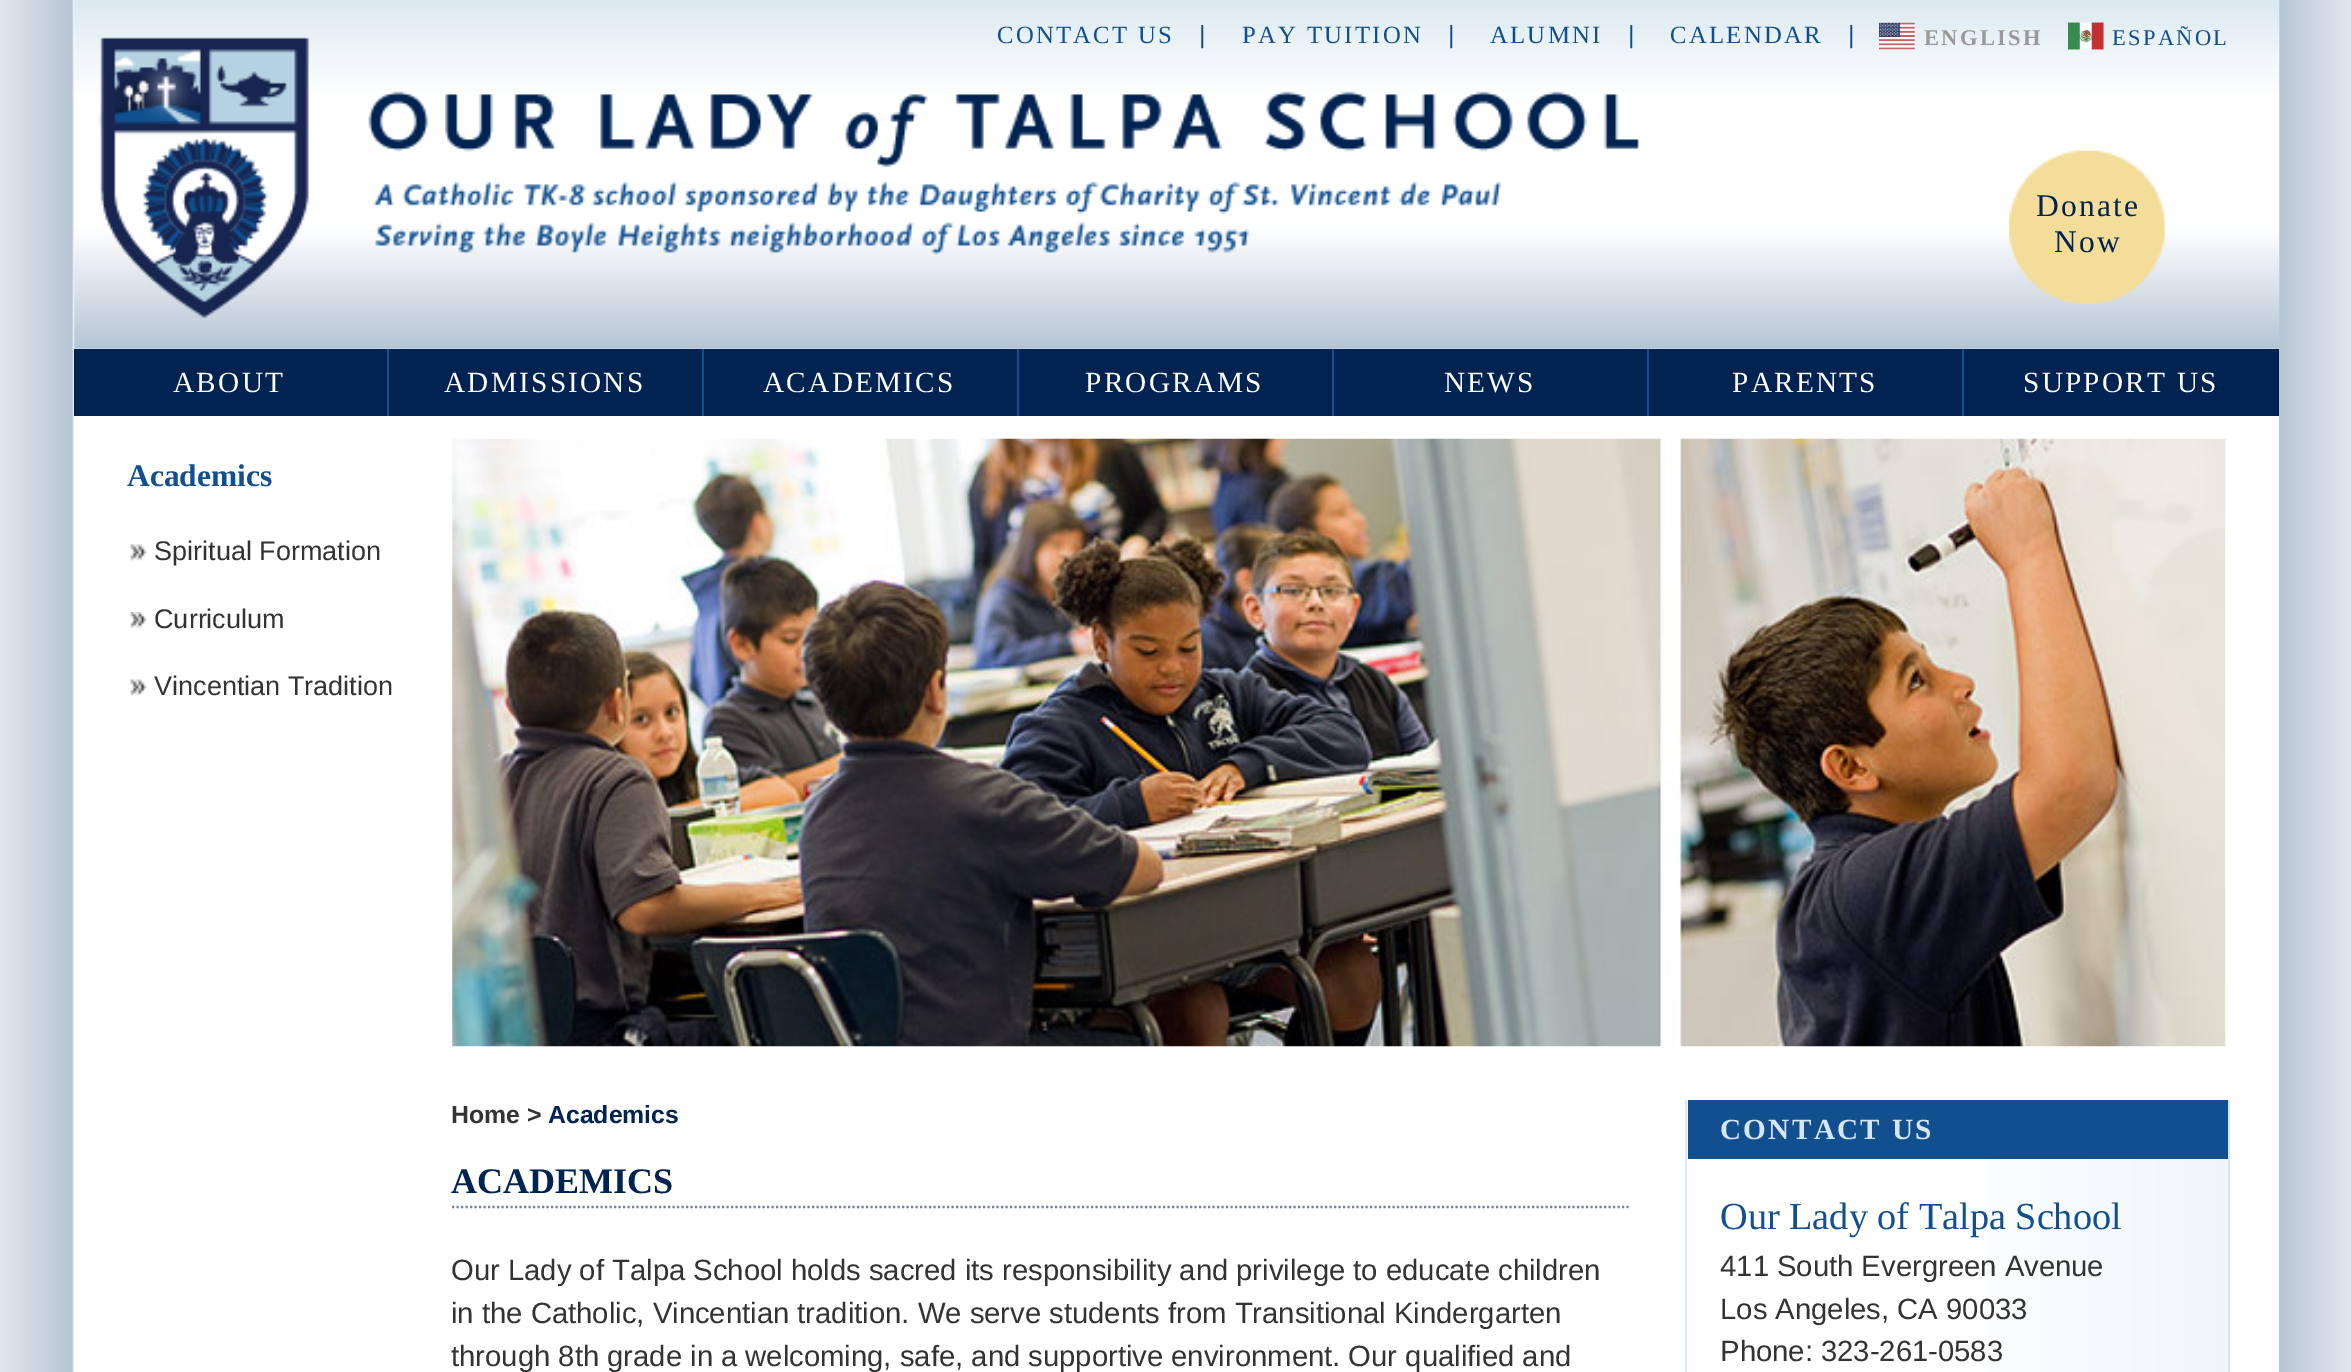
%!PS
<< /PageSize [2351 1372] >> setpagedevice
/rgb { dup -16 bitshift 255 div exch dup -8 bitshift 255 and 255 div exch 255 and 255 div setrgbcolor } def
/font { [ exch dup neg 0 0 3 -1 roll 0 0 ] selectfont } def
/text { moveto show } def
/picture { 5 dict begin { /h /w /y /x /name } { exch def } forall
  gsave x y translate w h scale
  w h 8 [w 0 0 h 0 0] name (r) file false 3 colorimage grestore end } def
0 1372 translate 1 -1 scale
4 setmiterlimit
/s1 { /LiberationSerif-Bold 31.5 font 16#114F8E rgb } def
/s2 { /LiberationSans-Regular 27 font 16#333333 rgb } def
/s3 { /LiberationSans-Bold 24.75 font 16#333333 rgb } def
/s4 { /LiberationSans-Bold 24.75 font 16#002351 rgb } def
/s5 { /LiberationSerif-Bold 36 font 16#002351 rgb } def
/s6 { /LiberationSans-Regular 29.25 font 16#333333 rgb } def
/s7 { /LiberationSerif-Regular 38.25 font 16#114F8E rgb } def
16#FFFFFF rgb
0 0 2351 1372 rectfill
(pic1.raw) 0 0 2351 1372 picture
2275 0 4 1372 rectfill
(pic2.raw) 74 0 2206 349 picture
(pic5.raw) 98 37 1541 281 picture
/LiberationSerif-Regular 24.75 font
16#114F8E rgb
997 43 moveto 2.25 0 (CONTACT US) ashow
/LiberationSans-Regular 24.75 font
1199 43 moveto 2.25 0 (|) ashow
/LiberationSerif-Regular 24.75 font
1242 43 moveto 2.25 0 (PAY TUITION) ashow
/LiberationSans-Regular 24.75 font
1448 43 moveto 2.25 0 (|) ashow
/LiberationSerif-Regular 24.75 font
1490 43 moveto 2.25 0 (ALUMNI) ashow
/LiberationSans-Regular 24.75 font
1628 43 moveto 2.25 0 (|) ashow
/LiberationSerif-Regular 24.75 font
1670 43 moveto 2.25 0 (CALENDAR) ashow
/LiberationSans-Regular 24.75 font
1848 43 moveto 2.25 0 (|) ashow
(pic3.raw) 1879 22 36 28 picture
/LiberationSerif-Bold 22.5 font
16#999999 rgb
1924 45 moveto 2.25 0 (ENGLISH) ashow
(pic4.raw) 2068 22 36 28 picture
/LiberationSerif-Regular 22.5 font
16#114F8E rgb
2112 45 moveto 2.25 0 (ESPAÑOL) ashow
(pic6.raw) 2009 150 156 154 picture
/LiberationSerif-Regular 31.5 font
16#002351 rgb
2036 216 moveto 2.25 0 (Donate) ashow
2054 252 moveto 2.25 0 (Now) ashow
74 349 313 67 rectfill
16#114F8E rgb
387 349 2 67 rectfill
/LiberationSerif-Regular 29.25 font
16#FFFFFF rgb
173 392 moveto 2.25 0 (ABOUT) ashow
16#002351 rgb
389 349 313 67 rectfill
16#114F8E rgb
702 349 2 67 rectfill
16#FFFFFF rgb
444 392 moveto 2.25 0 (ADMISSIONS) ashow
16#002351 rgb
704 349 313 67 rectfill
16#114F8E rgb
1017 349 2 67 rectfill
16#FFFFFF rgb
763 392 moveto 2.25 0 (ACADEMICS) ashow
16#002351 rgb
1019 349 313 67 rectfill
16#114F8E rgb
1332 349 2 67 rectfill
16#FFFFFF rgb
1085 392 moveto 2.25 0 (PROGRAMS) ashow
16#002351 rgb
1334 349 313 67 rectfill
16#114F8E rgb
1647 349 2 67 rectfill
16#FFFFFF rgb
1444 392 moveto 2.25 0 (NEWS) ashow
16#002351 rgb
1649 349 313 67 rectfill
16#114F8E rgb
1962 349 2 67 rectfill
16#FFFFFF rgb
1732 392 moveto 2.25 0 (PARENTS) ashow
16#002351 rgb
1964 349 315 67 rectfill
16#FFFFFF rgb
2023 392 moveto 2.25 0 (SUPPORT US) ashow
s1
(Academics) 127 486 text
(pic7.raw) 130 544 17 17 picture
s2
(Spiritual Formation) 154 560 text
(pic8.raw) 130 612 17 16 picture
(Curriculum) 154 628 text
(pic7.raw) 130 679 17 17 picture
(Vincentian Tradition) 154 695 text
(pic9.raw) 452 438 1774 609 picture
s3
(Home >) 451 1123 text
s4
(Academics) 548 1123 text
16#6A89A8 rgb
2.2 setlinewidth
[2.25 2.25] 0 setdash
452 1207 moveto 1631 1207 lineto stroke
s5
(ACADEMICS) 451 1193 text
s6
(Our Lady of Talpa School holds sacred its responsibility and privilege to educate children) 451 1280 text
(in the Catholic, Vincentian tradition. We serve students from Transitional Kindergarten) 451 1323 text
(through 8th grade in a welcoming, safe, and supportive environment. Our qualified and) 451 1366 text
(pic10.raw) 1987 1159 241 213 picture
16#D7E6F5 rgb
2228 1100 2 272 rectfill
1685 1100 2 272 rectfill
16#114F8E rgb
1688 1100 540 59 rectfill
/LiberationSerif-Bold 29.25 font
16#D7E6F5 rgb
1720 1139 moveto 2.25 0 (CONTACT US) ashow
s7
(Our Lady of Talpa School) 1720 1229 text
s6
(411 South Evergreen Avenue) 1720 1276 text
(Los Angeles, CA 90033) 1720 1319 text
(Phone: 323-261-0583) 1720 1361 text
showpage
